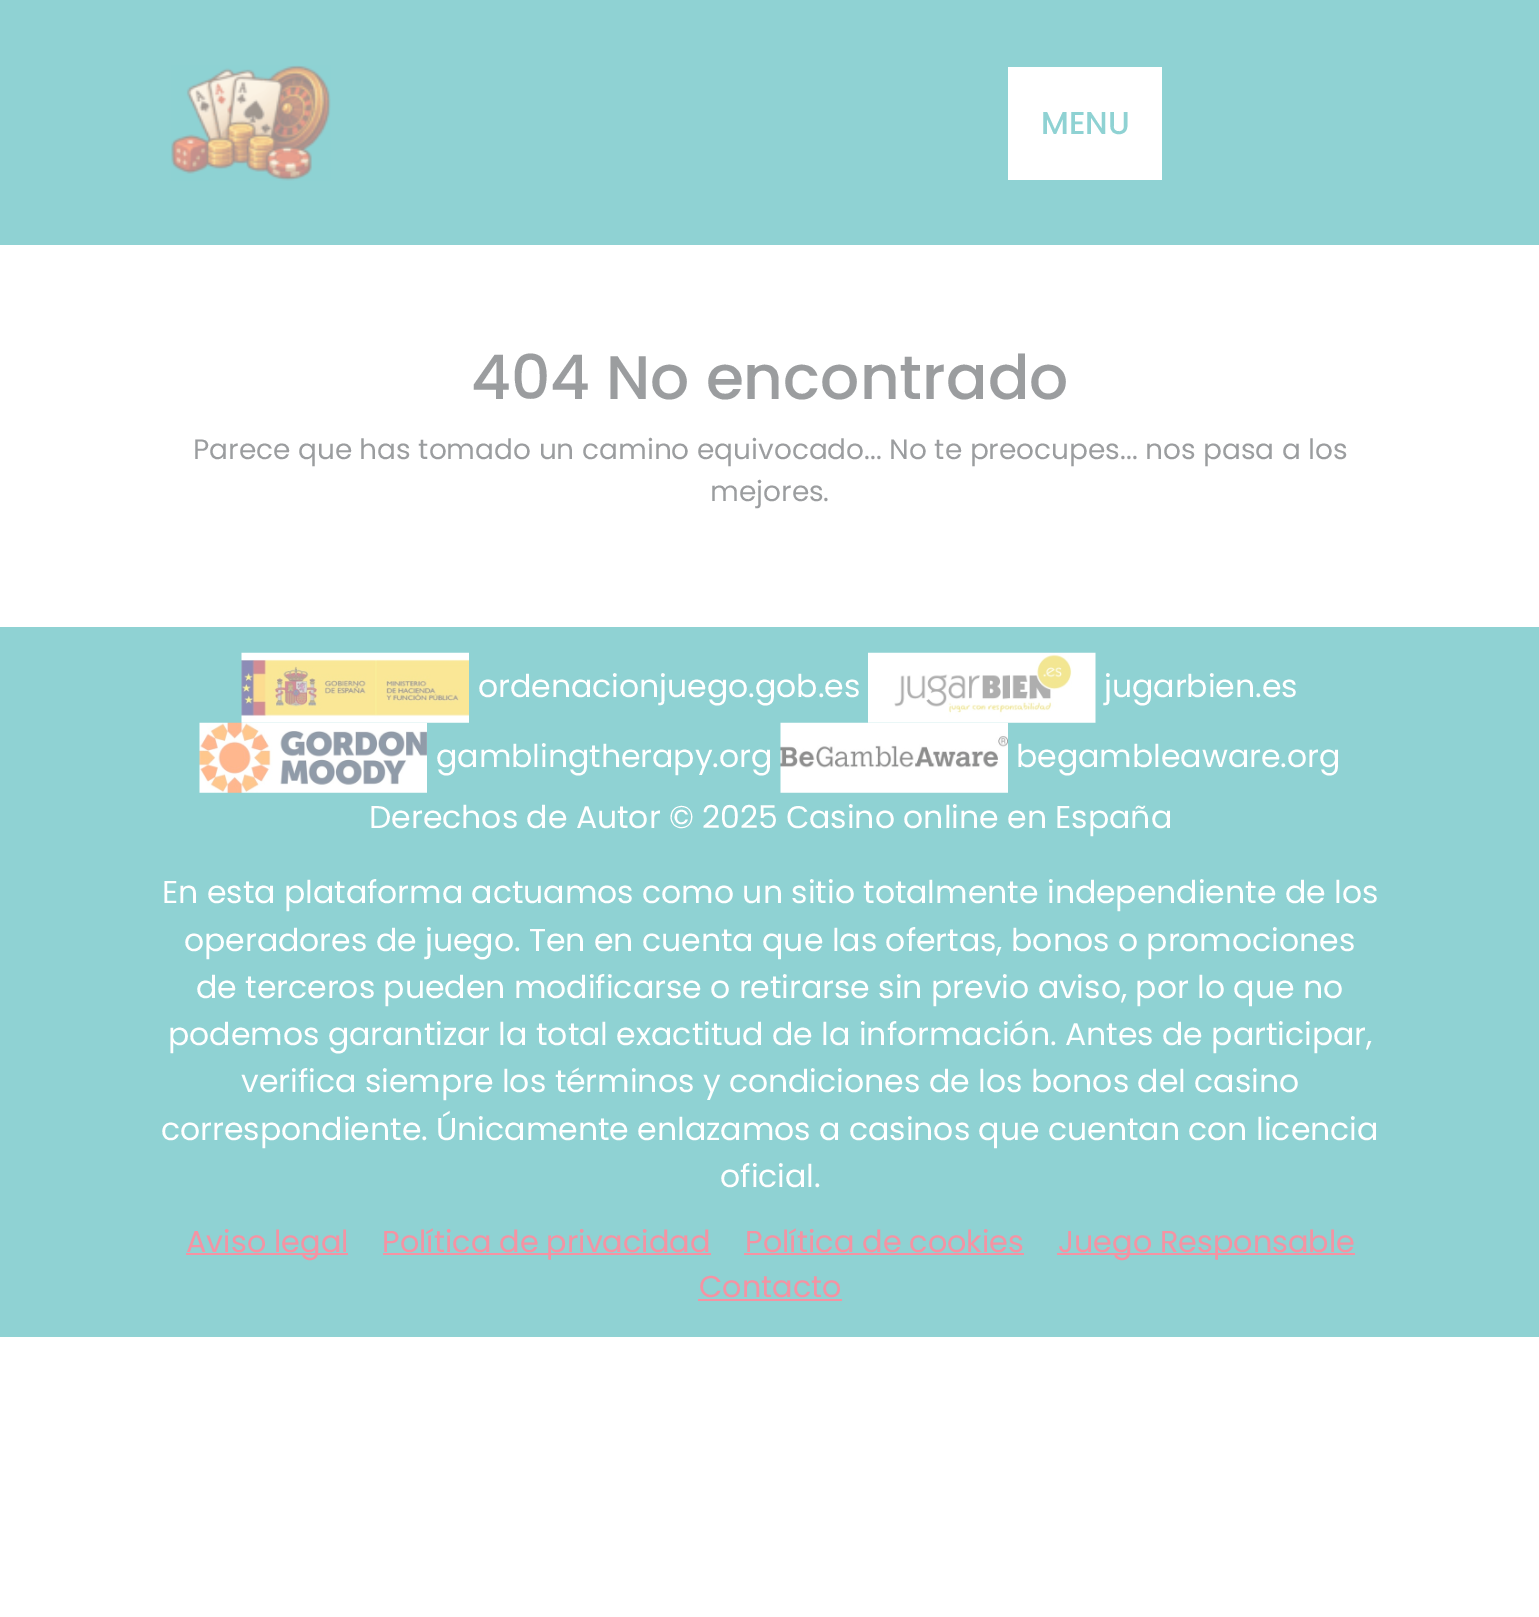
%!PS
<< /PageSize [1539 1617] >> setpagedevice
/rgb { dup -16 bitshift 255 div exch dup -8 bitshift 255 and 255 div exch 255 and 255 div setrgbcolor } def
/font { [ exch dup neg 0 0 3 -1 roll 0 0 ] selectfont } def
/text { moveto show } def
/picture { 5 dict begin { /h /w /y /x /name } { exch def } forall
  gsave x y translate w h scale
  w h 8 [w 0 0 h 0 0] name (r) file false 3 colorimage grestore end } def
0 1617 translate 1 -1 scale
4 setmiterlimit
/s1 { /Poppins-Medium 31.5 font 16#8FD2D3 rgb } def
/s2 { /Poppins-Medium 61.5 font 16#9B9D9F rgb } def
/s3 { /Poppins-Regular 28 font 16#9B9D9F rgb } def
/s4 { /Poppins-Regular 31.5 font 16#FFFFFF rgb } def
/s5 { /LiberationSans-Regular 31.5 font 16#FFFFFF rgb } def
/s6 { /Poppins-Regular 30.25 font 16#F593A3 rgb } def
16#FFFFFF rgb
0 0 1539 1617 rectfill
16#8FD2D3 rgb
0 0 1539 245 rectfill
(pic1.raw) 171 65 160 116 picture
16#FFFFFF rgb
1008 67 154 113 rectfill
s1
(MENU) 1041 134 text
s2
(404 No encontrado) 471 399 text
s3
(Parece que has tomado un camino equivocado... No te preocupes... nos pasa a los) 193 459 text
(mejores.) 710 501 text
16#8FD2D3 rgb
0 627 1539 710 rectfill
(pic2.raw) 241 652 228 71 picture
s4
(ordenacionjuego.gob.es) 478 697 text
(pic3.raw) 868 652 228 71 picture
(jugarbien.es) 1104 697 text
(pic4.raw) 199 722 228 71 picture
(gamblingtherapy.org) 436 767 text
(pic5.raw) 780 722 228 71 picture
(begambleaware.org) 1016 767 text
(Derechos de Autor © 2025) 369 828 text
s5
(С) 786 828 text
s4
(asino online en España) 809 828 text
(En esta plataforma actuamos como un sitio totalmente independiente de los) 162 903 text
(operadores de juego. Ten en cuenta que las ofertas, bonos o promociones) 184 951 text
(de terceros pueden modificarse o retirarse sin previo aviso, por lo que no) 196 998 text
(podemos garantizar la total exactitud de la información. Antes de participar,) 168 1045 text
(verifica siempre los términos y condiciones de los bonos del casino) 241 1092 text
(correspondiente. Únicamente enlazamos a casinos que cuentan con licencia) 161 1140 text
(oficial.) 720 1187 text
16#F593A3 rgb
186 1253 162 2 rectfill
s6
(Aviso legal) 186 1252 text
383 1253 328 2 rectfill
(Política de privacidad) 382 1252 text
(Política de cookies) 745 1252 text
744 1253 280 2 rectfill
1057 1253 298 2 rectfill
(Juego Responsable) 1058 1252 text
(Contacto) 699 1297 text
698 1299 144 2 rectfill
showpage
